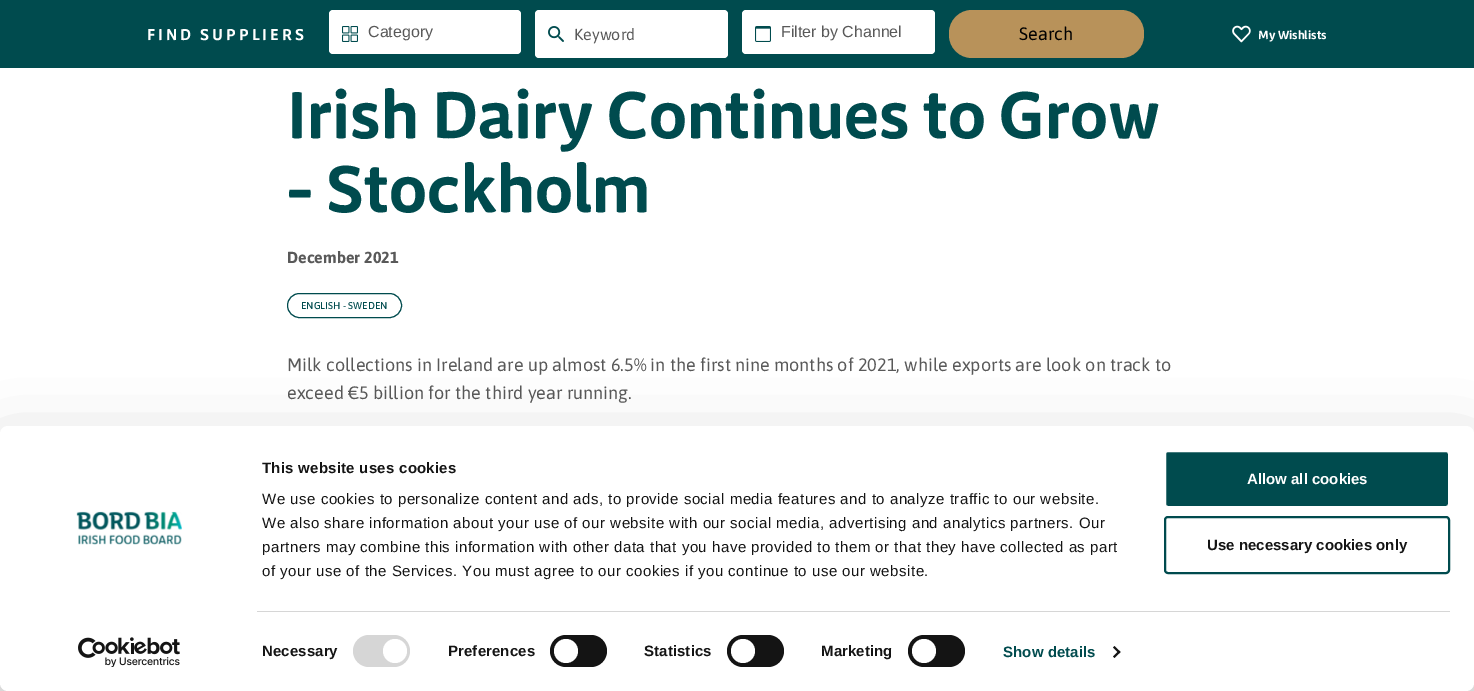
%!PS
<< /PageSize [1474 691] /PageUsesTransparency true >> setpagedevice
/rgb { dup -16 bitshift 255 div exch dup -8 bitshift 255 and 255 div exch 255 and 255 div setrgbcolor } def
/font { [ exch dup neg 0 0 3 -1 roll 0 0 ] selectfont } def
/text { moveto show } def
/alpha { dup .setfillconstantalpha .setstrokeconstantalpha } def
/circle { newpath 0 360 arc closepath } def
/roundrect { 5 dict begin { /r /h /w /y /x } { exch def } forall
  x r add y moveto x w add y 2 copy h add r arct x w add y h add x 1 index r arct
  x y h add x y r arct x y 2 copy exch w add exch r arct closepath end } def
/shadow { 12 dict begin { /a /b /q /h /w /y /x } { exch def } forall gsave /was 0 def
  9 -2 -9 { dup b mul 4 div /e exch def 1 sub .425 mul 2.718 exch exp 1 add a .99 .min exch div /now exch def
    1 1 now sub 1 was sub div sub alpha /was now def
    w h .min e 2 mul add 0 gt { x e sub y e sub w e 2 mul add h e 2 mul add
      q e add b .6 mul add w h .min 2 div e add .min 0 .max roundrect fill } if } for grestore end } def
/picture { 5 dict begin { /h /w /y /x /name } { exch def } forall
  gsave x y translate w h scale
  w h 8 [w 0 0 h 0 0] name (r) file false 3 colorimage grestore end } def
0 .pushpdf14devicefilter
0 691 translate 1 -1 scale
4 setmiterlimit
/s1 { /LiberationSans-Regular 16 font 16#595959 rgb } def
/s2 { /Asap-Regular 16 font 16#595959 rgb } def
/s3 { /Asap-Regular 18 font 16#000000 rgb } def
/s4 { /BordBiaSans-Bold 12 font 16#FFFFFF rgb } def
/s5 { /BordBiaSans-Bold 67 font 16#004B4E rgb } def
/s6 { /Asap-Bold 16 font 16#595959 rgb } def
/s7 { /Asap-Medium 10 font 16#004B4E rgb } def
/s8 { /Asap-Regular 18 font 16#595959 rgb } def
/s9 { /LiberationSans-Bold 15 font 16#FFFFFF rgb } def
/s10 { /LiberationSans-Bold 15 font 16#141414 rgb } def
16#FFFFFF rgb
0 0 1474 691 rectfill
16#004B4E rgb
0 0 1474 68 rectfill
/BordBiaSans-Bold 16 font
16#FFFFFF rgb
147 40 moveto 3 0 (FIND SUPPLIERS) ashow
329 10 192 44 4 roundrect fill
(pic1.raw) 342 26 16 16 picture
s1
(Category) 368 37 text
16#FFFFFF rgb
535 10 193 48 4 roundrect fill
(pic2.raw) 548 26 16 16 picture
s2
(Keyword) 574 40 text
16#FFFFFF rgb
742 10 193 44 4 roundrect fill
(pic3.raw) 755 26 16 16 picture
s1
(Filter by Channel) 781 37 text
16#B8925A rgb
949 10 195 48 23 roundrect fill
s3
(Search) 1019 40 text
(pic4.raw) 1232 25 19 18 picture
s4
(My Wishlists) 1258 39 text
s5
(Irish Dairy Continues to Grow) 287 138 text
(– Stockholm) 287 212 text
s6
(December 2021) 287 263 text
16#004B4E rgb
287.5 293.5 114 24 12 roundrect stroke
s7
(ENGLISH - SWEDEN) 301 309 text
s8
(Milk collections in Ireland are up almost 6.5% in the first nine months of 2021, while exports are look on track to) 287 371 text
(exceed €5 billion for the third year running.) 287 399 text
16#000000 rgb
0 456 1474 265 8 35 0.3 shadow
16#FFFFFF rgb
0 426 1474 265 8 roundrect fill
(pic5.raw) 76 511 106 34 picture
(pic6.raw) 78 637 102 30 picture
/LiberationSans-Bold 15 font
16#141414 rgb
262 473 moveto 0.25 0 (This website uses cookies) ashow
/LiberationSans-Regular 15 font
262 504 moveto 0.5 0 (We use cookies to personalize content and ads, to provide social media features and to analyze traffic to our website.) ashow
262 528 moveto 0.5 0 (We also share information about your use of our website with our social media, advertising and analytics partners. Our) ashow
262 552 moveto 0.5 0 (partners may combine this information with other data that you have provided to them or that they have collected as part) ashow
262 576 moveto 0.5 0 (of your use of the Services. You must agree to our cookies if you continue to use our website.) ashow
16#D6D6D6 rgb
257 611 1193 1 rectfill
/LiberationSans-Bold 15 font
16#141414 rgb
262 656 moveto 0.1 0 (Necessary) ashow
16#D6D6D6 rgb
353 635 57 32 16 roundrect fill
16#FFFFFF rgb
395 651 12 circle fill
16#141414 rgb
448 656 moveto 0.1 0 (Preferences) ashow
550 635 57 32 16 roundrect fill
16#FFFFFF rgb
566 651 12 circle fill
16#141414 rgb
644 656 moveto 0.1 0 (Statistics) ashow
727 635 57 32 16 roundrect fill
16#FFFFFF rgb
743 651 12 circle fill
16#141414 rgb
821 656 moveto 0.1 0 (Marketing) ashow
908 635 57 32 16 roundrect fill
16#FFFFFF rgb
924 651 12 circle fill
16#004B4E rgb
1003 657 moveto 0.1 0 (Show details) ashow
16#141414 rgb
1114.5 646 moveto 1120.5 652 lineto 1119 653.5 lineto 1113 647.5 lineto closepath fill
1119 650.5 moveto 1120.5 652 lineto 1114.5 658 lineto 1113 656.5 lineto closepath fill
16#004B4E rgb
1165 451 284 56 3 roundrect gsave fill grestore
16#FFFFFF rgb
2 setlinewidth
stroke
(Allow all cookies) 1247 484 text
16#004B4E rgb
1165 517 284 56 3 roundrect stroke
s10
(Use necessary cookies only) 1207 550 text
.poppdf14devicefilter showpage
